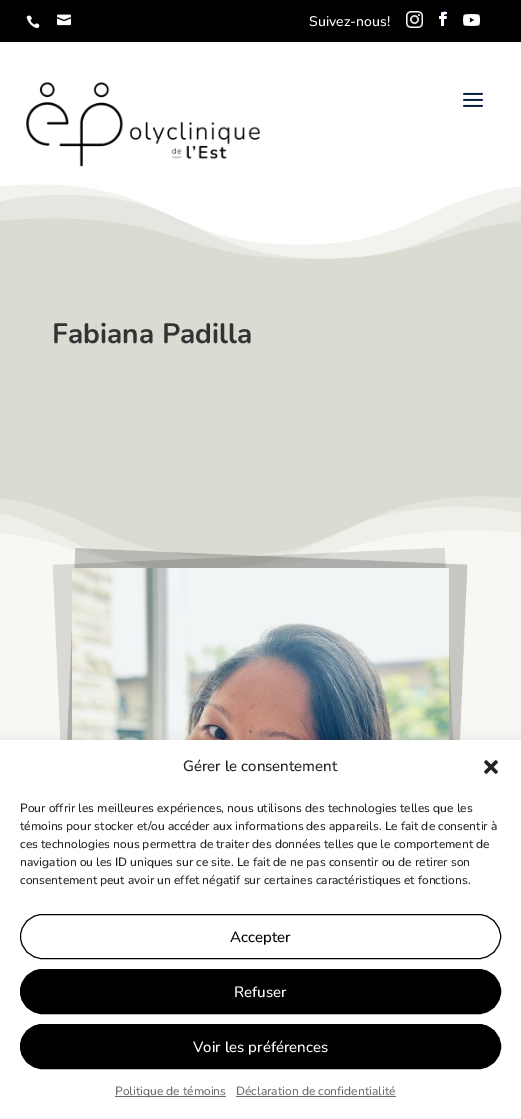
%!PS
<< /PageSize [521 1119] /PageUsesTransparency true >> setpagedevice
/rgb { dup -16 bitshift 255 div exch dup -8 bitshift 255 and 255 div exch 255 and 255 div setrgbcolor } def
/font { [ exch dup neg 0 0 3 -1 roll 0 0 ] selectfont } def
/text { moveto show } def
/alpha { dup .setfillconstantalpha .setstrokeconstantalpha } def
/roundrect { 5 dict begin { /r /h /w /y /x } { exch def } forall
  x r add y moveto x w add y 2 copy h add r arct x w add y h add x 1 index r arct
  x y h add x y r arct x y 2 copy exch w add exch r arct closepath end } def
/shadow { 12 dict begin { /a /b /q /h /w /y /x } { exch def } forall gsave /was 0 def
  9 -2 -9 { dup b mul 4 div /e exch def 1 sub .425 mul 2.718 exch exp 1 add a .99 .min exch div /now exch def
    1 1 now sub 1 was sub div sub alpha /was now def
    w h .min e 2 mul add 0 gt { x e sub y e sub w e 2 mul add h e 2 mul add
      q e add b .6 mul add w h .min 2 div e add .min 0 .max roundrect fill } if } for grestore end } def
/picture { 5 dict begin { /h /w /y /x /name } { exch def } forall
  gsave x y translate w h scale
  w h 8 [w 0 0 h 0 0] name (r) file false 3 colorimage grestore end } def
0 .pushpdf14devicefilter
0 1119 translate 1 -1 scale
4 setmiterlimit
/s1 { /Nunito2-ExtraLight 14 font 16#FFFFFF rgb } def
/s2 { /Nunito-ExtraLight 28 font 16#333333 rgb } def
/s3 { /Nunito2-ExtraLight 15 font 16#222222 rgb } def
/s4 { /Nunito2-ExtraLight 12 font 16#222222 rgb } def
/s5 { /Nunito2-ExtraLight 15 font 16#000000 rgb } def
/s6 { /Nunito2-ExtraLight 15 font 16#FFFFFF rgb } def
/s7 { /Nunito2-ExtraLight 12 font 16#6C6E68 rgb } def
16#FFFFFF rgb
0 0 521 1119 rectfill
16#000000 rgb
0 0 521 42 rectfill
(pic1.raw) 26 15 14 14 picture
(pic2.raw) 57 14 14 12 picture
s1
(Suivez-nous!) 309 26 text
(pic3.raw) 406 11 17 17 picture
(pic4.raw) 439 11 8 15 picture
(pic5.raw) 463 14 17 12 picture
(pic6.raw) 26 82 234 85 picture
(pic7.raw) 463 92 20 15 picture
16#D9DCD1 rgb
0 184 521 312 rectfill
(pic8.raw) 0 184 521 75 picture
s2
(Fabiana Padilla) 52 343 text
16#F8F7F4 rgb
0 496 521 244 rectfill
(pic9.raw) 0 496 521 72 picture
(pic10.raw) 52 548 416 192 picture
(pic11.raw) 72 568 377 172 picture
16#000000 rgb
0 750 521 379 0 10 0.19 shadow
16#FFFFFF rgb
0 740 521 379 rectfill
s3
(Gérer le consentement) 183 771 text
(pic12.raw) 484 760 14 14 picture
s4
(Pour offrir les meilleures expériences, nous utilisons des technologies telles que les) 20 812 text
(témoins pour stocker et/ou accéder aux informations des appareils. Le fait de consentir à) 20 830 text
(ces technologies nous permettra de traiter des données telles que le comportement de) 20 848 text
(navigation ou les ID uniques sur ce site. Le fait de ne pas consentir ou de retirer son) 20 866 text
(consentement peut avoir un effet négatif sur certaines caractéristiques et fonctions.) 20 884 text
16#000000 rgb
20.5 914.5 480 44 22 roundrect stroke
s5
(Accepter) 230 942 text
20.5 969.5 480 44 22 roundrect gsave fill grestore
stroke
s6
(Refuser) 234 997 text
16#000000 rgb
20.5 1024.5 480 44 22 roundrect gsave fill grestore
stroke
s6
(Voir les préférences) 193 1052 text
16#6C6E68 rgb
115 1096 111 1 rectfill
s7
(Politique de témoins) 115 1095 text
(Déclaration de confidentialité) 236 1095 text
236 1096 160 1 rectfill
.poppdf14devicefilter showpage
